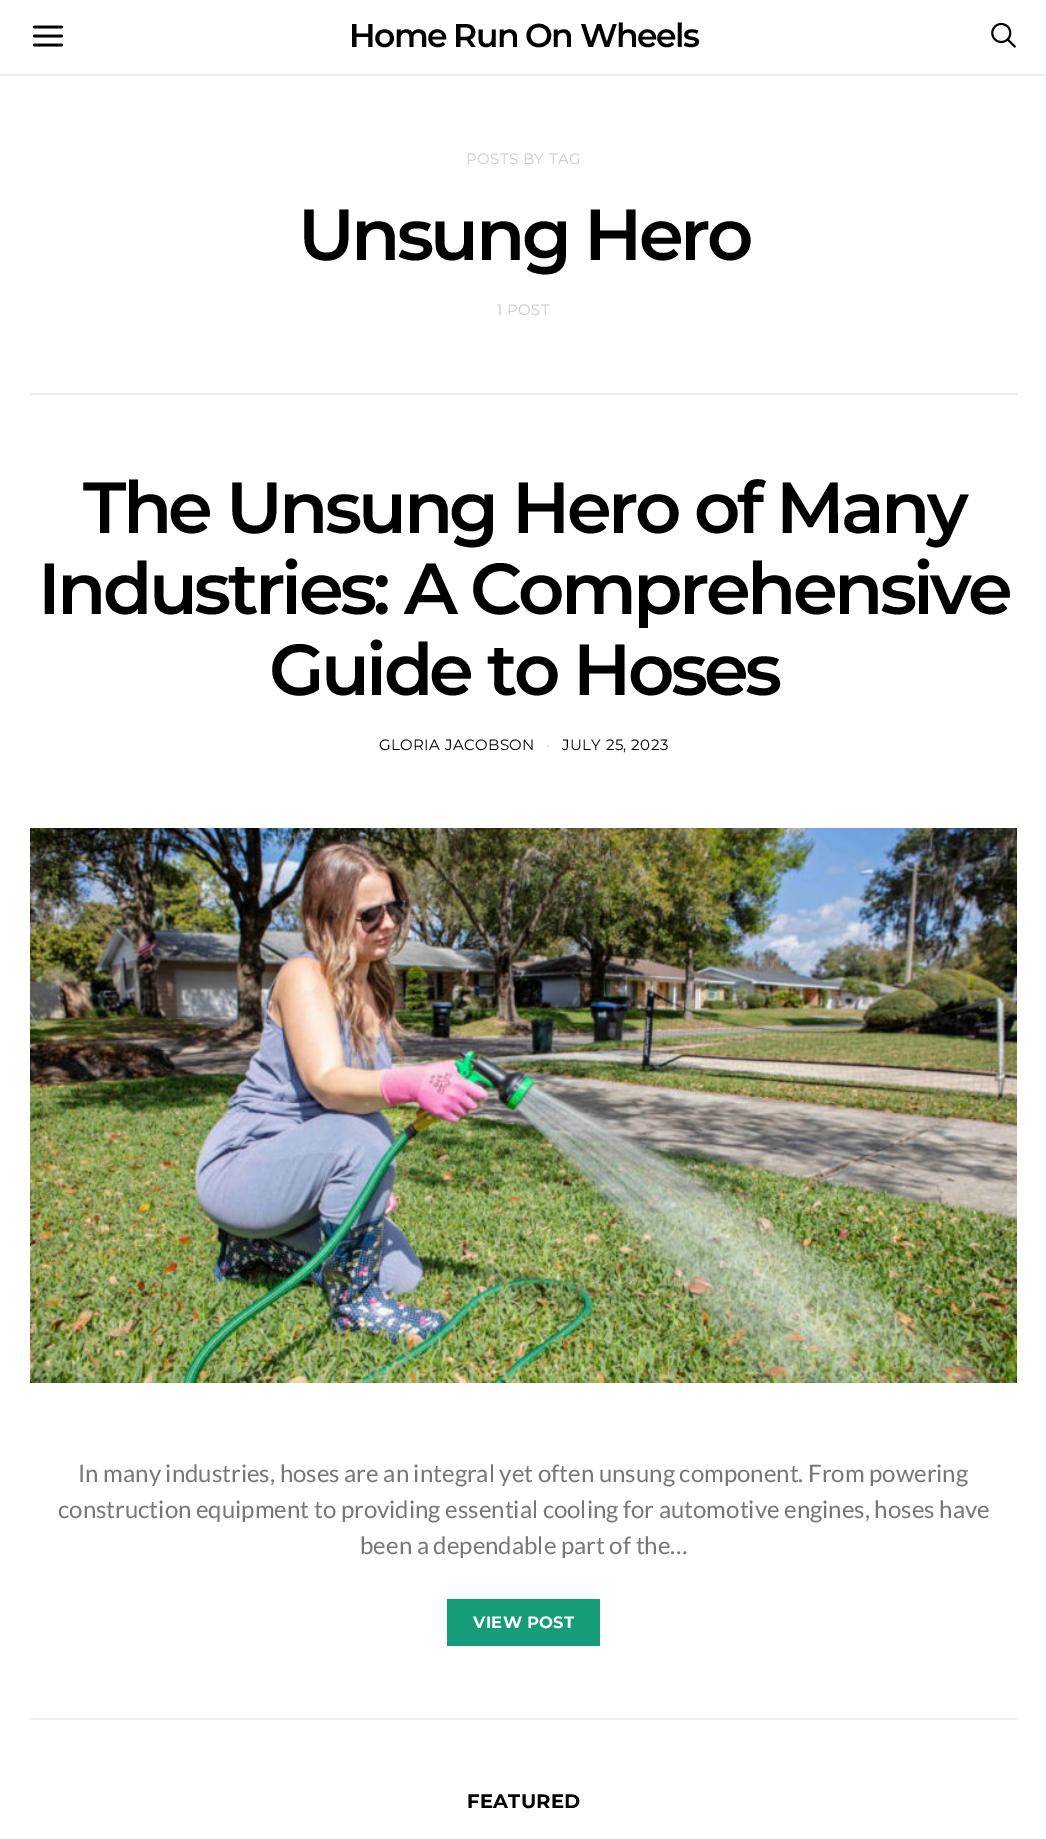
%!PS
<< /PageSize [1046 1839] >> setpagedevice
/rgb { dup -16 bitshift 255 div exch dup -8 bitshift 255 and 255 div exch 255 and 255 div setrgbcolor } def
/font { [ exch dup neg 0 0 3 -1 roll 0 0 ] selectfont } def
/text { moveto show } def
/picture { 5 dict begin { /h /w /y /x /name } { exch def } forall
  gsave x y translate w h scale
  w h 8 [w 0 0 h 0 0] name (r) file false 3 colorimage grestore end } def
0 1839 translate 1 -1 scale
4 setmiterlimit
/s1 { /Lato-Regular 24 font 16#777777 rgb } def
16#FFFFFF rgb
0 0 1046 1839 rectfill
16#EEEEEE rgb
0 74 1046 2 rectfill
(pic1.raw) 33 25 30 22 picture
/Montserrat-SemiBold 33 font
16#000000 rgb
349 47 moveto -1.6 0 (Home Run On Wheels) ashow
(pic2.raw) 991 22 25 26 picture
16#EEEEEE rgb
30 1718 987 2 rectfill
/Montserrat-Regular 15 font
16#C9C9C9 rgb
466 164 moveto 0.4 0 (POSTS BY TAG) ashow
/Montserrat-SemiBold 72 font
16#000000 rgb
298 260 moveto -3.6 0 (Unsung Hero) ashow
/Montserrat-Regular 15 font
16#C9C9C9 rgb
497 315 moveto 0.4 0 (1 POST) ashow
16#E9ECEF rgb
30 393 987 2 rectfill
/Montserrat-SemiBold 72 font
16#000000 rgb
83 533 moveto -3.6 0 (The Unsung Hero of Many) ashow
38 614 moveto -3.6 0 (Industries: A Comprehensive) ashow
269 695 moveto -3.6 0 (Guide to Hoses) ashow
/Montserrat-Regular 15 font
379 750 moveto 0.4 0 (GLORIA JACOBSON) ashow
16#C9C9C9 rgb
546 750 moveto 0.4 0 (·) ashow
16#000000 rgb
562 750 moveto 0.4 0 (JULY 25, 2023) ashow
(pic3.raw) 30 828 987 555 picture
s1
(In many industries, hoses are an integral yet often unsung component. From powering) 78 1482 text
(construction equipment to providing essential cooling for automotive engines, hoses have) 58 1518 text
(been a dependable part of the…) 360 1554 text
16#169C78 rgb
447 1599 153 47 rectfill
/Montserrat-Bold 16.5 font
16#FFFFFF rgb
473 1628 moveto 0.25 0 (VIEW POST) ashow
/Montserrat-Bold 19.5 font
16#000000 rgb
467 1808 moveto 0.25 0 (FEATURED) ashow
showpage
